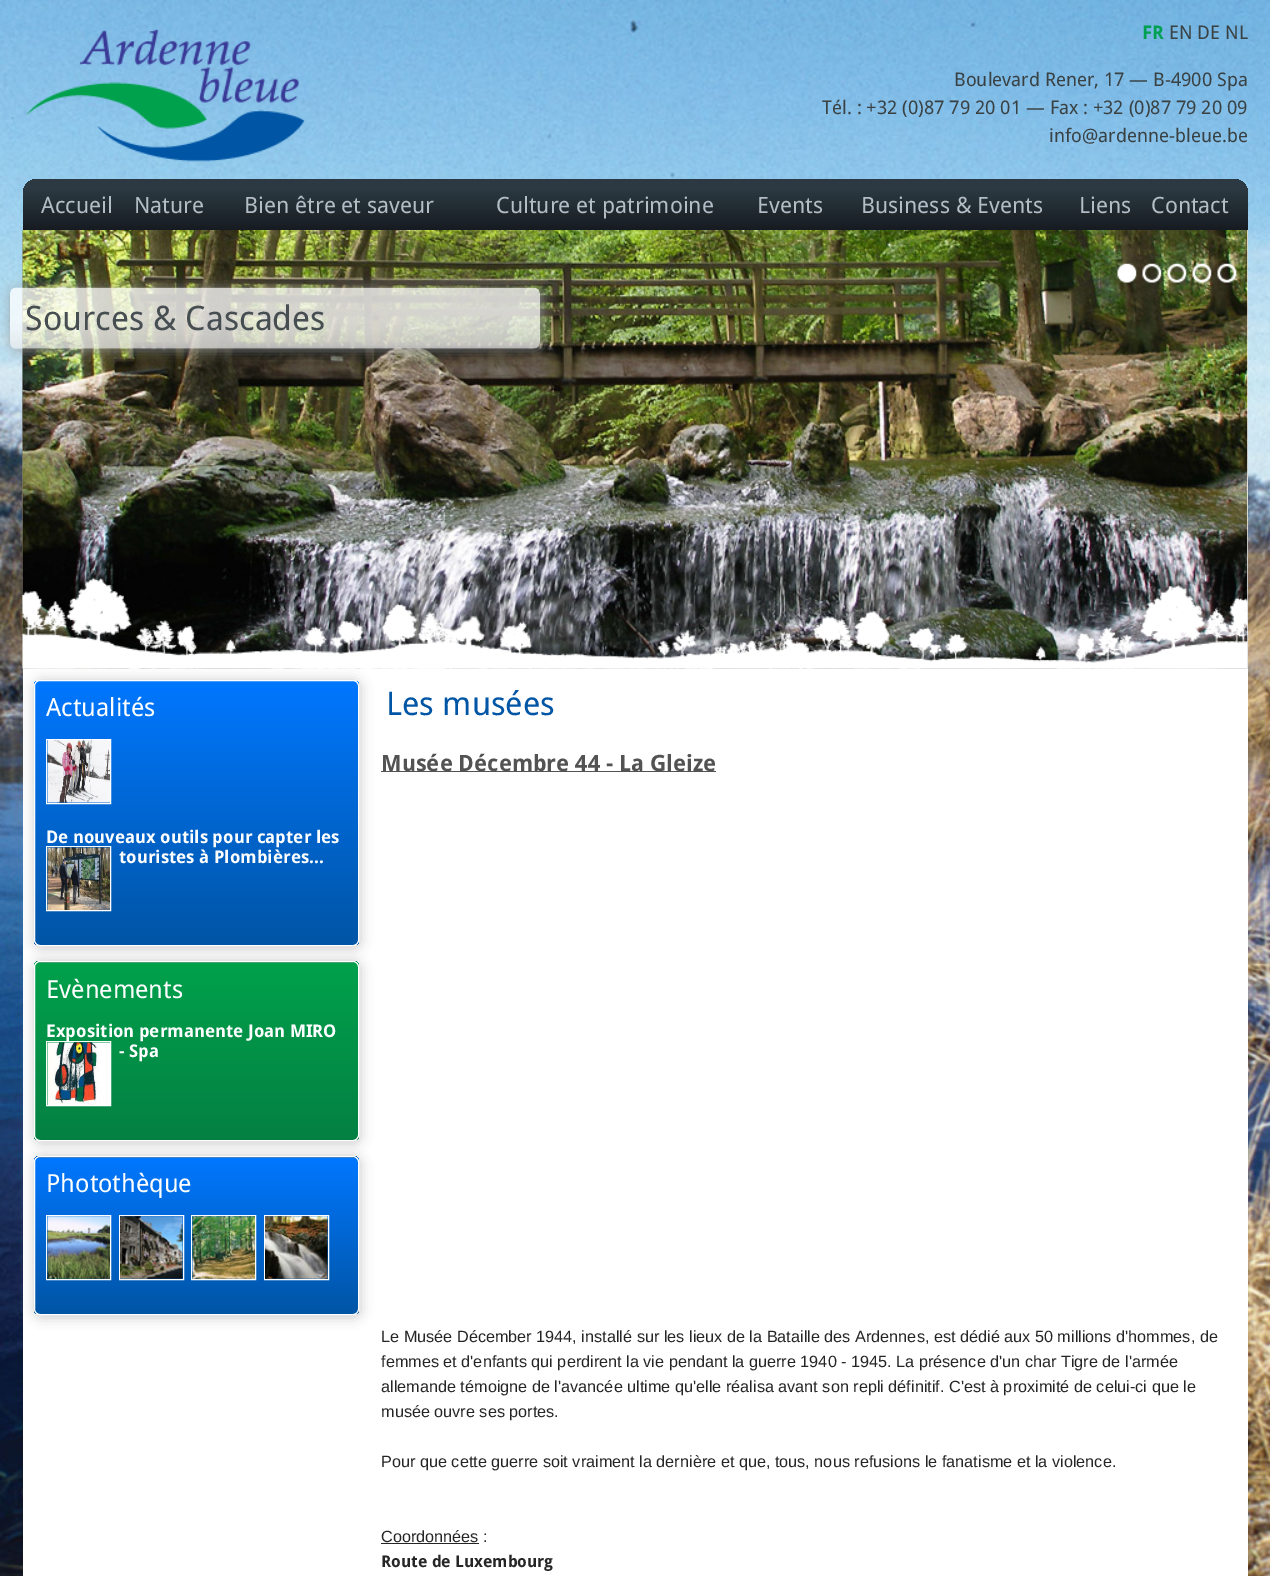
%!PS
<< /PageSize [1270 1576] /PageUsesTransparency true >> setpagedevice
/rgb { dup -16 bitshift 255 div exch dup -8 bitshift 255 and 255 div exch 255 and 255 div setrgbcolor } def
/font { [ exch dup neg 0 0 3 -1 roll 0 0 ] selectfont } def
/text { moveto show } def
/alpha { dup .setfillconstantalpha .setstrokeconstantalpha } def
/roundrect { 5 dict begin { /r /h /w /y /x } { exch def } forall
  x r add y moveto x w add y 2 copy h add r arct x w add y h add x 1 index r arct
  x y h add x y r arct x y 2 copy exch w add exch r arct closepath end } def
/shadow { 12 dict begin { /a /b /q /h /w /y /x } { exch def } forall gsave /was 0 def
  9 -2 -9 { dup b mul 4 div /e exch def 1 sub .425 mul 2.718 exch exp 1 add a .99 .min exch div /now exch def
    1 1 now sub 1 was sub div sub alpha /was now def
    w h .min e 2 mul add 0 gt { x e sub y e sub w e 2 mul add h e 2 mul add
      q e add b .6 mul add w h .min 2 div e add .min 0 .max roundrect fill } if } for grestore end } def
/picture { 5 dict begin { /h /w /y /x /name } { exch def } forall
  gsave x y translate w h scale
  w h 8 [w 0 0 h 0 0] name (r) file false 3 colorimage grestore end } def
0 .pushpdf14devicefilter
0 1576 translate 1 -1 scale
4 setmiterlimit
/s1 { /DroidSans-Bold 18.75 font 16#00A052 rgb } def
/s2 { /DroidSans-Regular 18.75 font 16#394143 rgb } def
/s3 { /DroidSans-Regular 22.5 font 16#B3BDC5 rgb } def
/s4 { /DroidSans-Regular 33.75 font 16#474E52 rgb } def
/s5 { /DroidSans-Regular 25 font 16#FFFFFF rgb } def
/s6 { /DroidSans-Bold 17.5 font 16#FFFFFF rgb } def
/s7 { /DroidSans-Regular 32.5 font 16#0055A5 rgb } def
/s8 { /DroidSans-Bold 22.5 font 16#535353 rgb } def
/s9 { /LiberationSans-Regular 16.25 font 16#252525 rgb } def
/s10 { /DroidSans-Bold 16.25 font 16#252525 rgb } def
16#FFFFFF rgb
0 0 1270 1576 rectfill
(pic1.raw) 0 0 1270 1576 picture
(pic2.raw) 26 28 279 134 picture
s1
(FR) 1142 39 text
s2
(EN DE NL) 1169 39 text
(Boulevard Rener, 17 — B-4900 Spa) 954 86 text
(Tél. : +32 \(0\)87 79 20 01 — Fax : +32 \(0\)87 79 20 09) 822 114 text
(info@ardenne-bleue.be) 1049 142 text
gsave 38 179 moveto 1233 179 lineto 1241.5 179 1248 185.5 1248 194 curveto 1248 230 lineto 23 230 lineto 23 194 lineto 23 185.5 29.5 179 38 179 curveto closepath clip newpath
<< /ShadingType 2 /ColorSpace /DeviceRGB /Coords [635 179 635 230] /Extend [true true] /Function << /FunctionType 3 /Domain [0 1] /Functions [<< /FunctionType 2 /Domain [0 1] /C0 [0.173 0.224 0.259] /C1 [0.173 0.224 0.259] /N 1 >> << /FunctionType 2 /Domain [0 1] /C0 [0.173 0.224 0.259] /C1 [0.086 0.106 0.129] /N 1 >>] /Bounds [0.19] /Encode [0 1 0 1] >> >> shfill grestore
s3
(Accueil) 41 213 text
16#252525 rgb
41 214 72 1 rectfill
s3
(Nature) 134 213 text
16#252525 rgb
134 214 70 1 rectfill
s3
(Bien être et saveur) 244 213 text
16#252525 rgb
244 214 190 1 rectfill
496 214 218 1 rectfill
s3
(Culture et patrimoine) 496 213 text
(Events) 757 213 text
16#252525 rgb
758 214 65 1 rectfill
s3
(Business & Events) 861 213 text
16#252525 rgb
861 214 182 1 rectfill
s3
(Liens) 1079 213 text
16#252525 rgb
1079 214 52 1 rectfill
s3
(Contact) 1151 213 text
16#252525 rgb
1151 214 78 1 rectfill
16#FFFFFF rgb
23 669 1225 907 rectfill
16#CCCCCC rgb
34 680 327 269 8 6 1 shadow
(pic3.raw) 22 230 1 439 picture
(pic4.raw) 22 230 1 439 picture
(pic5.raw) 22 230 1 439 picture
(pic6.raw) 22 230 1 438 picture
16#FFFFFF rgb
23 230 1225 439 rectfill
(pic7.raw) 22 230 1226 439 picture
(pic8.raw) 1117 263 20 20 picture
(pic9.raw) 1142 263 20 20 picture
(pic10.raw) 1167 263 20 20 picture
(pic11.raw) 1192 263 20 20 picture
(pic12.raw) 1217 263 20 20 picture
gsave
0 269 moveto 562 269 lineto 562 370 lineto 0 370 lineto closepath 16 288 moveto 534 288 lineto 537.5 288 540 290.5 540 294 curveto 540 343 lineto 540 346.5 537.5 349 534 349 curveto 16 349 lineto 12.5 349 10 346.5 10 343 curveto 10 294 lineto 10 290.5 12.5 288 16 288 curveto closepath eoclip newpath
16#999999 rgb
10 288 533 63 8 6 0.77 shadow
grestore
(pic13.raw) 10 287 530 62 picture
s4
(Sources & Cascades) 25 330 text
(pic14.raw) 22 569 1226 100 picture
gsave
34 680 325 266 6 roundrect clip newpath
gsave 34 681 moveto 359 681 lineto 359 945 lineto 34 945 lineto closepath clip newpath
<< /ShadingType 2 /ColorSpace /DeviceRGB /Coords [196 681 196 945] /Extend [true true] /Function << /FunctionType 2 /Domain [0 1] /C0 [0.004 0.467 1] /C1 [0 0.333 0.647] /N 1 >> >> shfill grestore
grestore
16#FFFFFF rgb
34.5 680.5 324 265 5.5 roundrect stroke
s5
(Actualités) 46 716 text
46.5 739.5 64 64 rectstroke
(pic15.raw) 47 740 63 63 picture
46.5 846.5 64 64 rectstroke
(pic16.raw) 47 847 63 63 picture
s6
(De nouveaux outils pour capter les) 46 843 text
(touristes à Plombières...) 119 863 text
16#CCCCCC rgb
34 961 327 183 8 6 1 shadow
gsave
34 961 325 180 6 roundrect clip newpath
gsave 34 961 moveto 359 961 lineto 359 963 lineto 34 963 lineto closepath clip newpath
<< /ShadingType 2 /ColorSpace /DeviceRGB /Coords [196 785 196 963] /Extend [true true] /Function << /FunctionType 2 /Domain [0 1] /C0 [0 0.631 0.298] /C1 [0.016 0.502 0.259] /N 1 >> >> shfill grestore
gsave 34 963 moveto 359 963 lineto 359 1140 lineto 34 1140 lineto closepath clip newpath
<< /ShadingType 2 /ColorSpace /DeviceRGB /Coords [196 963 196 1140] /Extend [true true] /Function << /FunctionType 2 /Domain [0 1] /C0 [0 0.631 0.298] /C1 [0.016 0.502 0.259] /N 1 >> >> shfill grestore
grestore
16#FFFFFF rgb
34.5 961.5 324 179 5.5 roundrect stroke
s5
(Evènements) 46 998 text
46.5 1041.5 64 64 rectstroke
s6
(Exposition permanente Joan MIRO) 46 1037 text
(pic17.raw) 47 1042 63 63 picture
(- Spa) 119 1057 text
16#CCCCCC rgb
34 1156 327 162 8 6 1 shadow
gsave
34 1156 325 159 6 roundrect clip newpath
gsave 34 1156 moveto 359 1156 lineto 359 1158 lineto 34 1158 lineto closepath clip newpath
<< /ShadingType 2 /ColorSpace /DeviceRGB /Coords [196 1001 196 1158] /Extend [true true] /Function << /FunctionType 2 /Domain [0 1] /C0 [0.004 0.467 1] /C1 [0 0.333 0.647] /N 1 >> >> shfill grestore
gsave 34 1158 moveto 359 1158 lineto 359 1314 lineto 34 1314 lineto closepath clip newpath
<< /ShadingType 2 /ColorSpace /DeviceRGB /Coords [196 1158 196 1314] /Extend [true true] /Function << /FunctionType 2 /Domain [0 1] /C0 [0.004 0.467 1] /C1 [0 0.333 0.647] /N 1 >> >> shfill grestore
grestore
16#FFFFFF rgb
34.5 1156.5 324 158 5.5 roundrect stroke
s5
(Photothèque) 46 1192 text
46.5 1215.5 64 64 rectstroke
(pic18.raw) 47 1216 63 63 picture
119.5 1215.5 64 64 rectstroke
(pic19.raw) 120 1216 63 63 picture
191.5 1215.5 64 64 rectstroke
(pic20.raw) 192 1216 63 63 picture
264.5 1215.5 64 64 rectstroke
(pic21.raw) 265 1216 63 63 picture
s7
(Les musées) 386 715 text
16#535353 rgb
381 771 335 1 rectfill
s8
(Musée Décembre 44 - La Gleize) 381 771 text
s9
(Le Musée Décember 1944, installé sur les lieux de la Bataille des Ardennes, est dédié aux 50 millions d'hommes, de) 381 1342 text
(femmes et d'enfants qui perdirent la vie pendant la guerre 1940 - 1945. La présence d'un char Tigre de l'armée) 381 1367 text
(allemande témoigne de l'avancée ultime qu'elle réalisa avant son repli définitif. C'est à proximité de celui-ci que le) 381 1392 text
(musée ouvre ses portes.) 381 1417 text
(Pour que cette guerre soit vraiment la dernière et que, tous, nous refusions le fanatisme et la violence.) 381 1467 text
(Coordonnées :) 381 1542 text
381 1543 98 1 rectfill
s10
(Route de Luxembourg) 381 1567 text
.poppdf14devicefilter showpage
